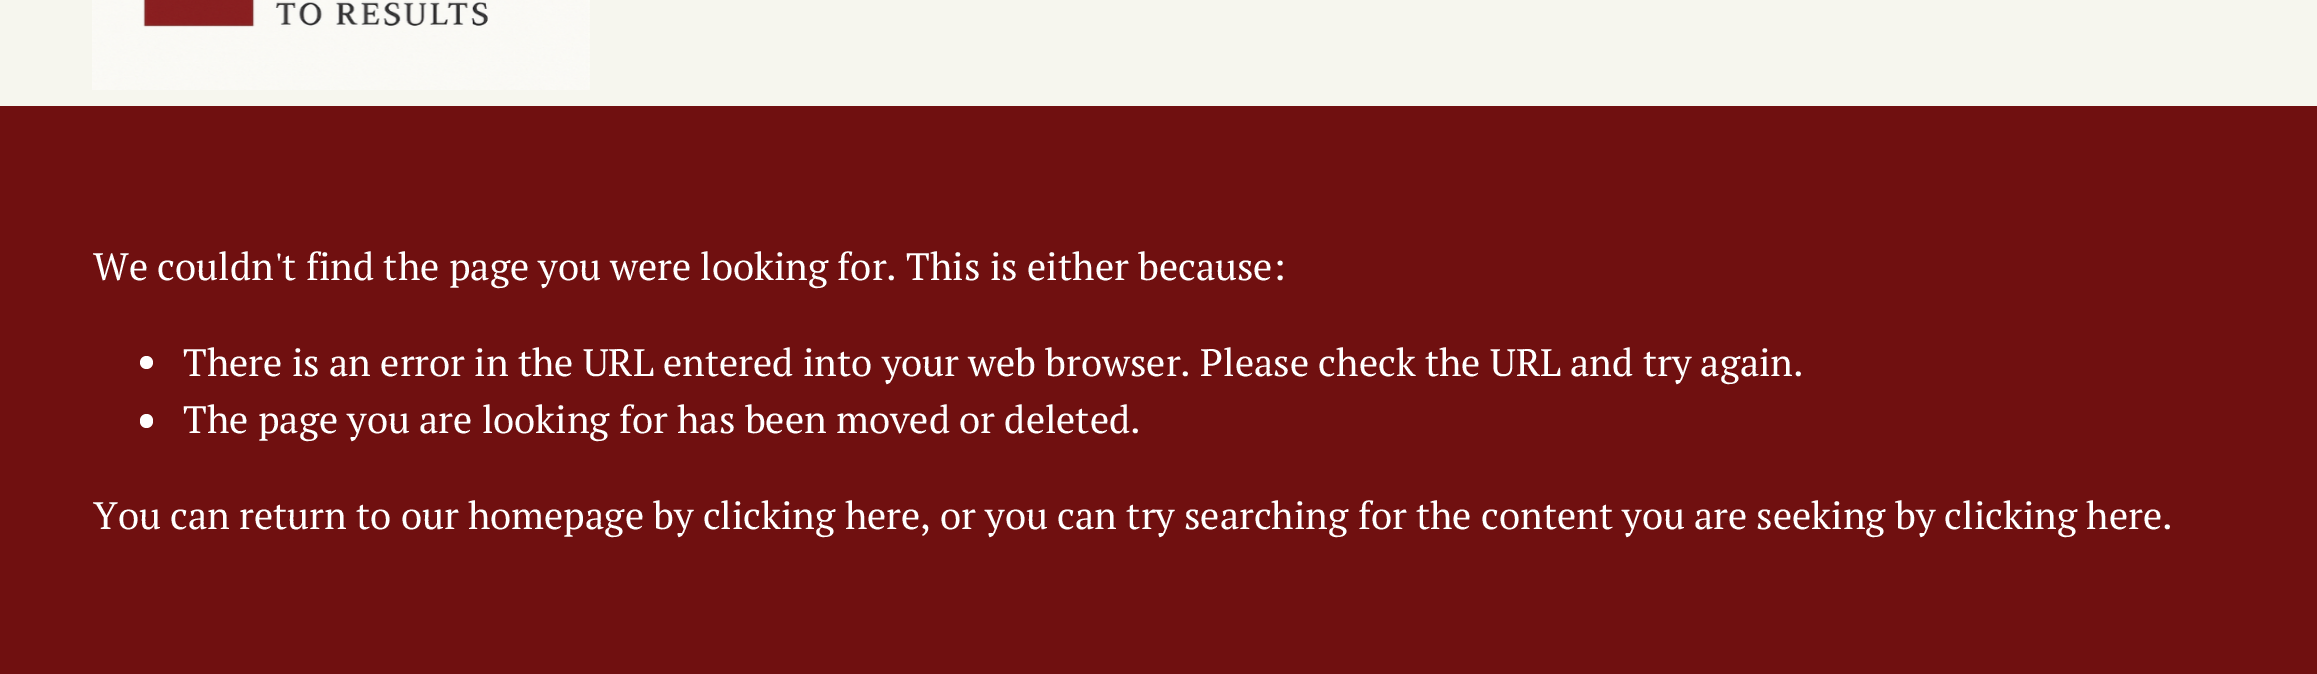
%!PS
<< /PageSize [2317 674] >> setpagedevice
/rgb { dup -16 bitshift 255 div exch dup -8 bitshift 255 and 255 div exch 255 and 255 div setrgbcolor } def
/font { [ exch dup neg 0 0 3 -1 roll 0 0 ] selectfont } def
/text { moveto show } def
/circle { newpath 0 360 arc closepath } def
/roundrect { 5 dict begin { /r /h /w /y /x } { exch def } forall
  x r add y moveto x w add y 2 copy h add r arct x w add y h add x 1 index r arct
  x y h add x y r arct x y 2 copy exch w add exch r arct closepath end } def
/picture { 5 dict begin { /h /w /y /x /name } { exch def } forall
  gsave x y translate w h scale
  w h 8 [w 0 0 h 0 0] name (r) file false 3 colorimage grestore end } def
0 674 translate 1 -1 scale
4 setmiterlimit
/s1 { /PTSerif-Regular 38.25 font 16#FFFFFF rgb } def
16#701010 rgb
0 0 2317 674 rectfill
16#F6F6EE rgb
0 0 2317 106 rectfill
(pic1.raw) 92 0 498 90 picture
s1
(We couldn't find the page you were looking for. This is either because:) 93 280 text
146.5 362.5 6.5 circle fill
(There is an error in the URL entered into your web browser. Please check the URL and try again.) 183 376 text
140 414 13 14 6.5 roundrect fill
(The page you are looking for has been moved or deleted.) 183 433 text
(You can return to our homepage by clicking here, or you can try searching for the content you are seeking by clicking here.) 93 529 text
showpage
